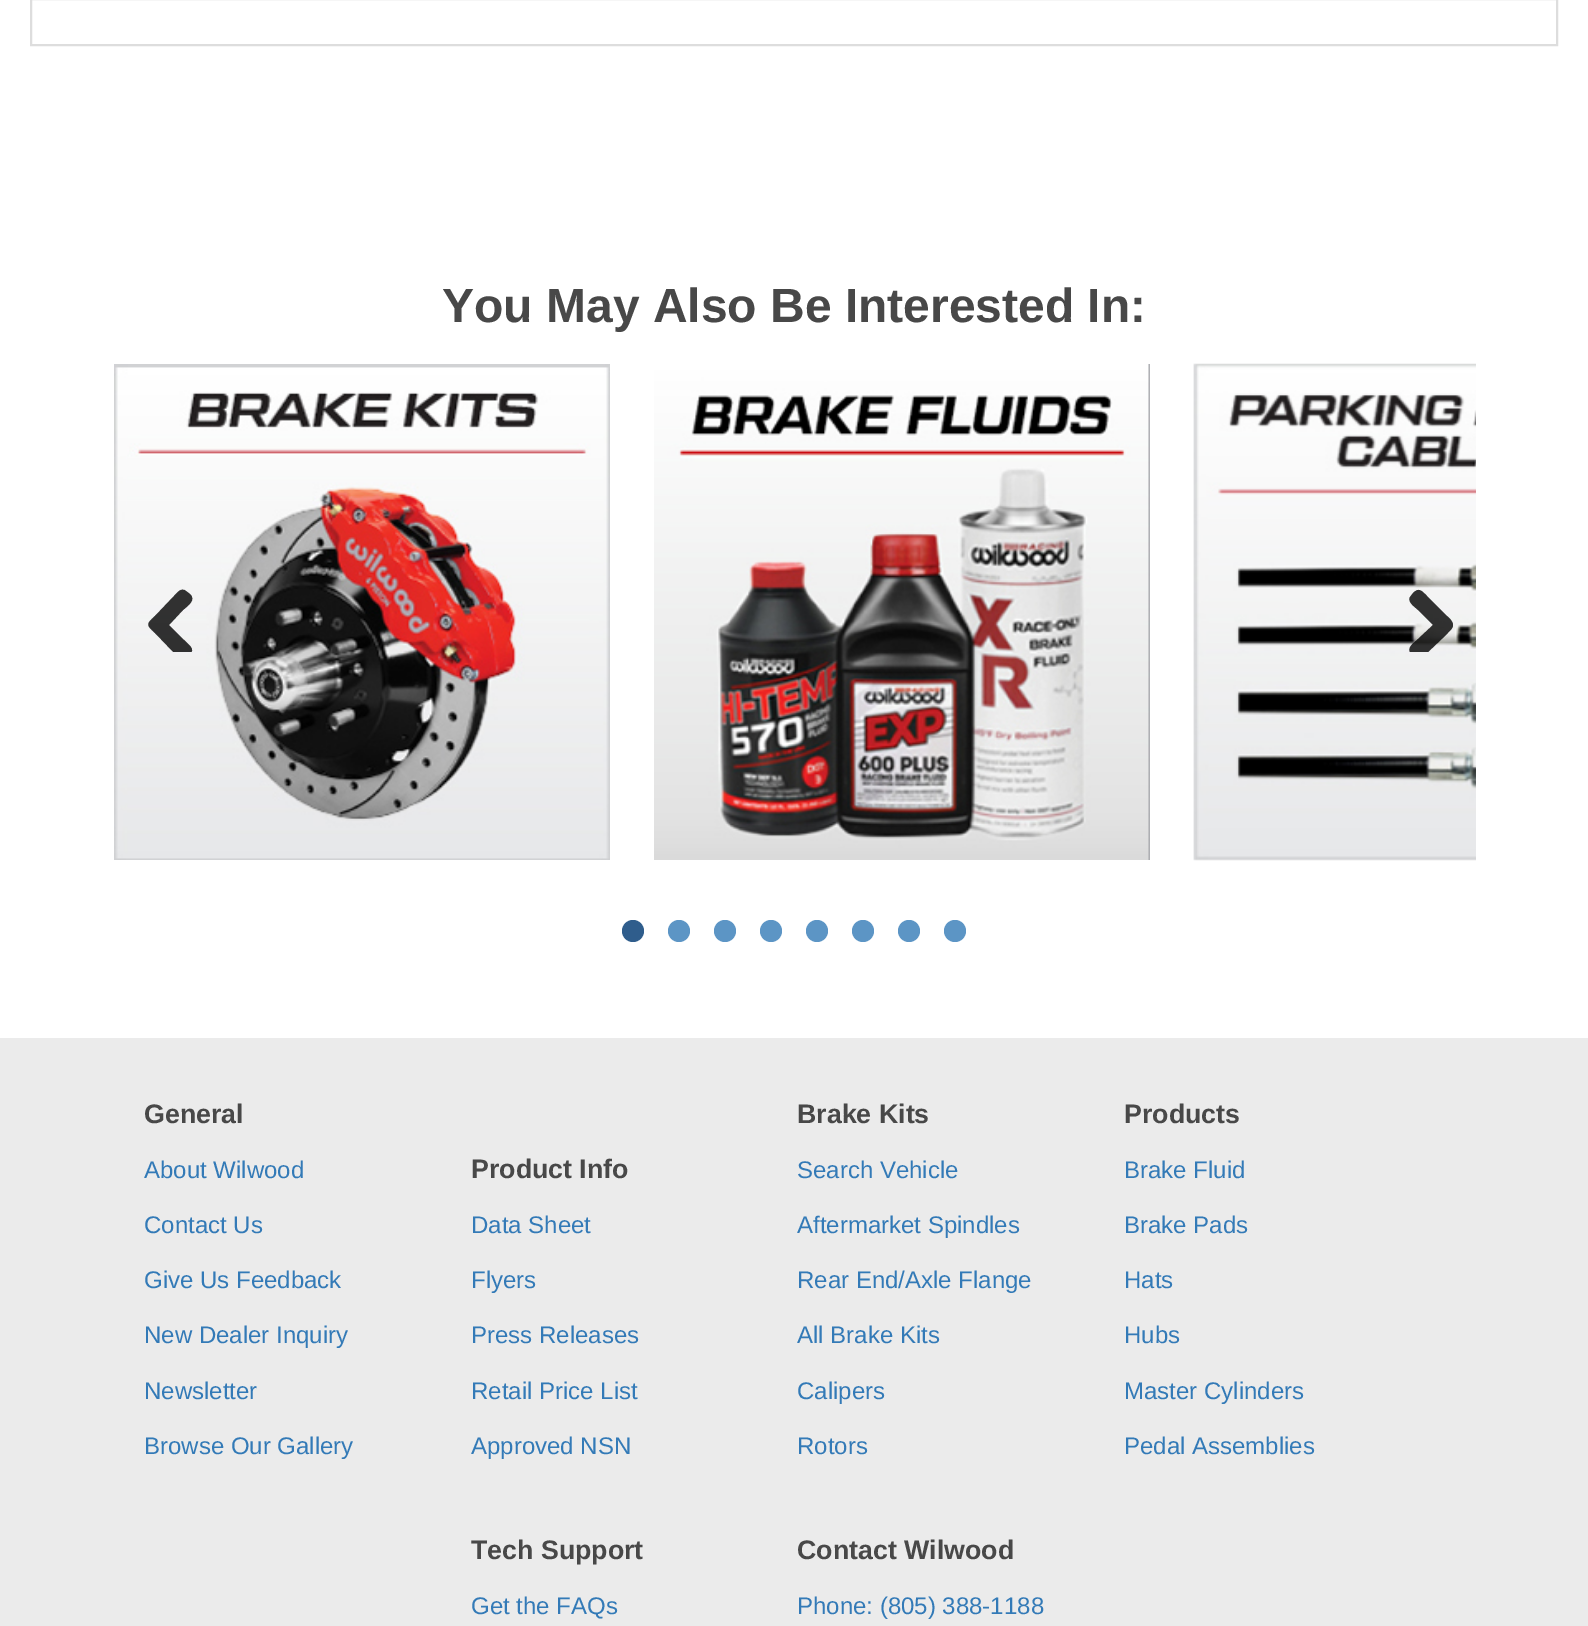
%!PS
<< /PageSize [1588 1626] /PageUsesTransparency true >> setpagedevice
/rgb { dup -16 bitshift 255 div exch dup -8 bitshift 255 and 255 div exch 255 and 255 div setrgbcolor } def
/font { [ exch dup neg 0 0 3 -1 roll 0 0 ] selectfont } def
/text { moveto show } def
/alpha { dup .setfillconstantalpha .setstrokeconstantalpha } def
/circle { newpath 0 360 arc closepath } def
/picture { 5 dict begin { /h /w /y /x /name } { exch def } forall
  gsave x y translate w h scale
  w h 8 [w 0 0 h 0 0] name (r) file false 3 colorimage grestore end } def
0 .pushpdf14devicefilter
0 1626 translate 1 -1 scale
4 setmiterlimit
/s1 { /LiberationSans-Bold 48 font 16#484848 rgb } def
/s2 { /LiberationSans-Bold 26.75 font 16#484848 rgb } def
/s3 { /LiberationSans-Regular 24 font 16#337AB7 rgb } def
16#FFFFFF rgb
0 0 1588 1626 rectfill
16#DDDDDD rgb
2 setlinewidth
31 -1 1526 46 rectstroke
s1
(You May Also Be Interested In:) 442 322 text
(pic1.raw) 114 364 496 496 picture
(pic2.raw) 654 364 496 496 picture
(pic3.raw) 1193 363 283 498 picture
gsave
132 572 80 80 rectclip
0.8 alpha
16#000000 rgb
179 658 moveto 155 633 lineto 146 625 146 624 155 616 curveto 174 596 lineto 177 593 181 587 186 591 curveto 190 594 lineto 196 600 189 605 183 610 curveto 169 625 lineto 183 639 lineto 192 648 196 649 187 658 curveto 185 660 181 660 179 658 curveto closepath fill
grestore
gsave
1376 572 80 80 rectclip
0.8 alpha
16#000000 rgb
1453 625 moveto 1453 629 1449 631 1447 634 curveto 1427 653 lineto 1422 658 1419 662 1413 657 curveto 1410 652 lineto 1407 647 1415 642 1418 639 curveto 1433 625 lineto 1418 610 lineto 1415 607 1407 602 1410 597 curveto 1413 593 lineto 1419 587 1422 591 1427 596 curveto 1447 616 lineto 1449 618 1453 621 1453 625 curveto closepath fill
grestore
16#2F5D8C rgb
633 931 11 circle fill
16#5C95C5 rgb
679 931 11 circle fill
725 931 11 circle fill
771 931 11 circle fill
817 931 11 circle fill
863 931 11 circle fill
909 931 11 circle fill
955 931 11 circle fill
16#EBEBEB rgb
0 1038 1588 588 rectfill
s2
(General) 144 1123 text
s3
(About Wilwood) 144 1178 text
(Contact Us) 144 1233 text
(Give Us Feedback) 144 1288 text
(New Dealer Inquiry) 144 1343 text
(Newsletter) 144 1399 text
(Browse Our Gallery) 144 1454 text
s2
(Product Info) 471 1178 text
s3
(Data Sheet) 471 1233 text
(Flyers) 471 1288 text
(Press Releases) 471 1343 text
(Retail Price List) 471 1399 text
(Approved NSN) 471 1454 text
s2
(Brake Kits) 797 1123 text
s3
(Search Vehicle) 797 1178 text
(Aftermarket Spindles) 797 1233 text
(Rear End/Axle Flange) 797 1288 text
(All Brake Kits) 797 1343 text
(Calipers) 797 1399 text
(Rotors) 797 1454 text
s2
(Products) 1124 1123 text
s3
(Brake Fluid) 1124 1178 text
(Brake Pads) 1124 1233 text
(Hats) 1124 1288 text
(Hubs) 1124 1343 text
(Master Cylinders) 1124 1399 text
(Pedal Assemblies) 1124 1454 text
s2
(Tech Support) 471 1559 text
s3
(Get the FAQs) 471 1614 text
s2
(Contact Wilwood) 797 1559 text
s3
(Phone: \(805\) 388-1188) 797 1614 text
.poppdf14devicefilter showpage
